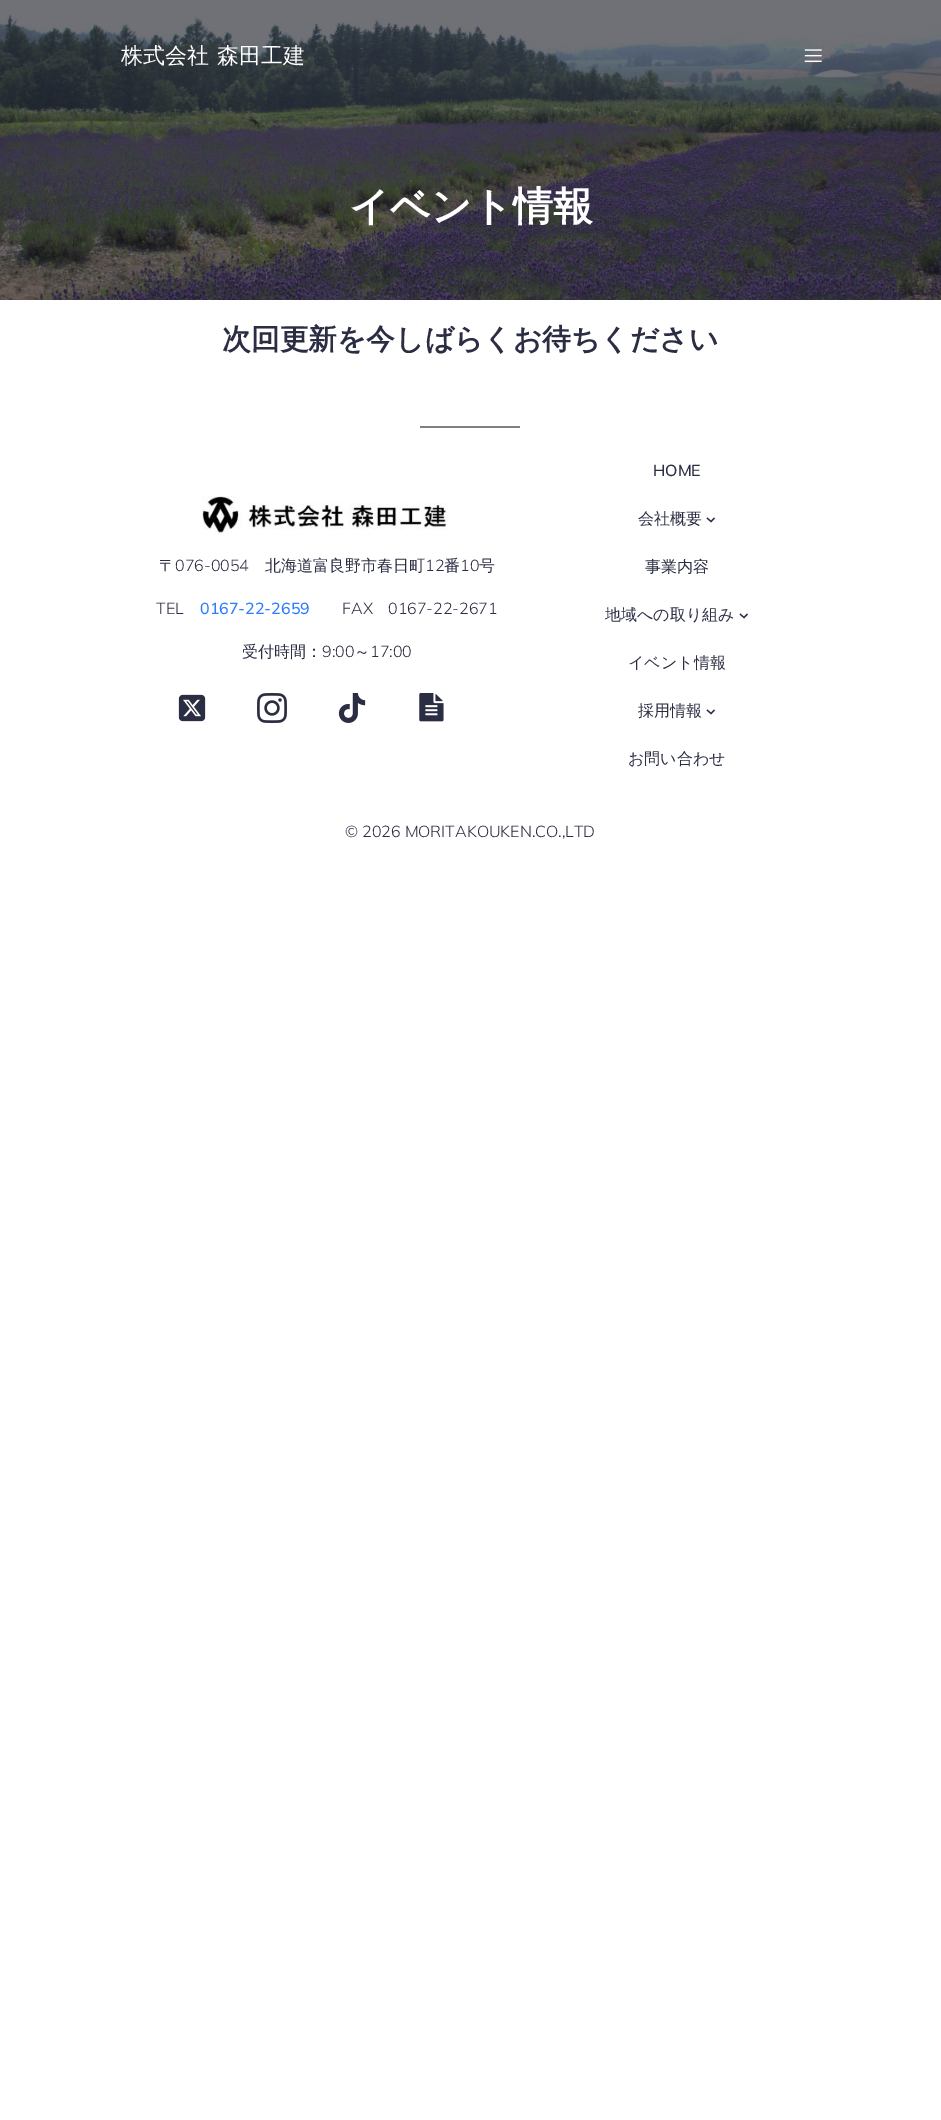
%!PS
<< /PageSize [941 2120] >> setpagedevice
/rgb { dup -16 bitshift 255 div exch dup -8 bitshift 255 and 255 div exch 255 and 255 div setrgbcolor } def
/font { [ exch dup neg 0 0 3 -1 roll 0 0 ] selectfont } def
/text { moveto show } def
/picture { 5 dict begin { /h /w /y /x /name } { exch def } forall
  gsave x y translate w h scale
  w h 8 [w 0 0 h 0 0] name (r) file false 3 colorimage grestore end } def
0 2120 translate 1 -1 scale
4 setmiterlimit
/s1 { /WenQuanYiZenHei-Bold 40 font 16#FFFFFF rgb } def
/s2 { /WenQuanYiZenHei-Bold 28.75 font 16#2B2D42 rgb } def
/s3 { /WenQuanYiZenHei-Medium 16 font 16#2B2D42 rgb } def
/s4 { /Mulish-Light 16 font 16#2B2D42 rgb } def
/s5 { /Mulish-Medium 16 font 16#2F7CFF rgb } def
/s6 { /Mulish-Medium 16 font 16#2B2D42 rgb } def
16#FFFFFF rgb
0 0 941 2120 rectfill
16#707176 rgb
0 0 941 14 rectfill
(pic2.raw) 0 14 941 286 picture
/WenQuanYiZenHei-Medium 22 font
16#FFFFFF rgb
121 63 moveto 1 0 32 (株式会社 森田工建) widthshow
(pic1.raw) 804 49 18 13 picture
s1
(イベント情報) 349 220 text
s2
(次回更新を今しばらくお待ちください) 222 349 text
16#808080 rgb
420 426 100 2 rectfill
(pic3.raw) 202 496 247 38 picture
s3
(〒) 159 571 text
s4
(076-0054) 175 571 text
s3
(北海道富良野市春日町) 265 571 text
s4
(12) 425 571 text
s3
(番) 444 571 text
s4
(10) 460 571 text
s3
(号) 479 571 text
s4
(TEL) 156 614 text
s5
(0167-22-2659) 200 614 text
s4
(FAX) 342 614 text
(0167-22-2671) 388 614 text
s3
(受付時間：) 242 657 text
s4
(9:00) 322 657 text
s3
(～) 354 657 text
s4
(17:00) 370 657 text
(pic4.raw) 178 694 28 28 picture
(pic5.raw) 257 693 30 30 picture
(pic6.raw) 338 693 28 30 picture
(pic7.raw) 419 693 25 29 picture
s6
(HOME) 653 476 text
s3
(会社概要) 638 524 text
1.2 setlinewidth
707 518 moveto 711 521.5 lineto 714.5 518 lineto stroke
(事業内容) 645 572 text
(地域への取り組み) 605 620 text
740 614 moveto 744 617.5 lineto 747.5 614 lineto stroke
(イベント情報) 628 668 text
(採用情報) 638 716 text
707 710 moveto 711 713.5 lineto 714.5 710 lineto stroke
(お問い合わせ) 628 764 text
s4
(© 2026 MORITAKOUKEN.CO.,LTD) 345 837 text
showpage
